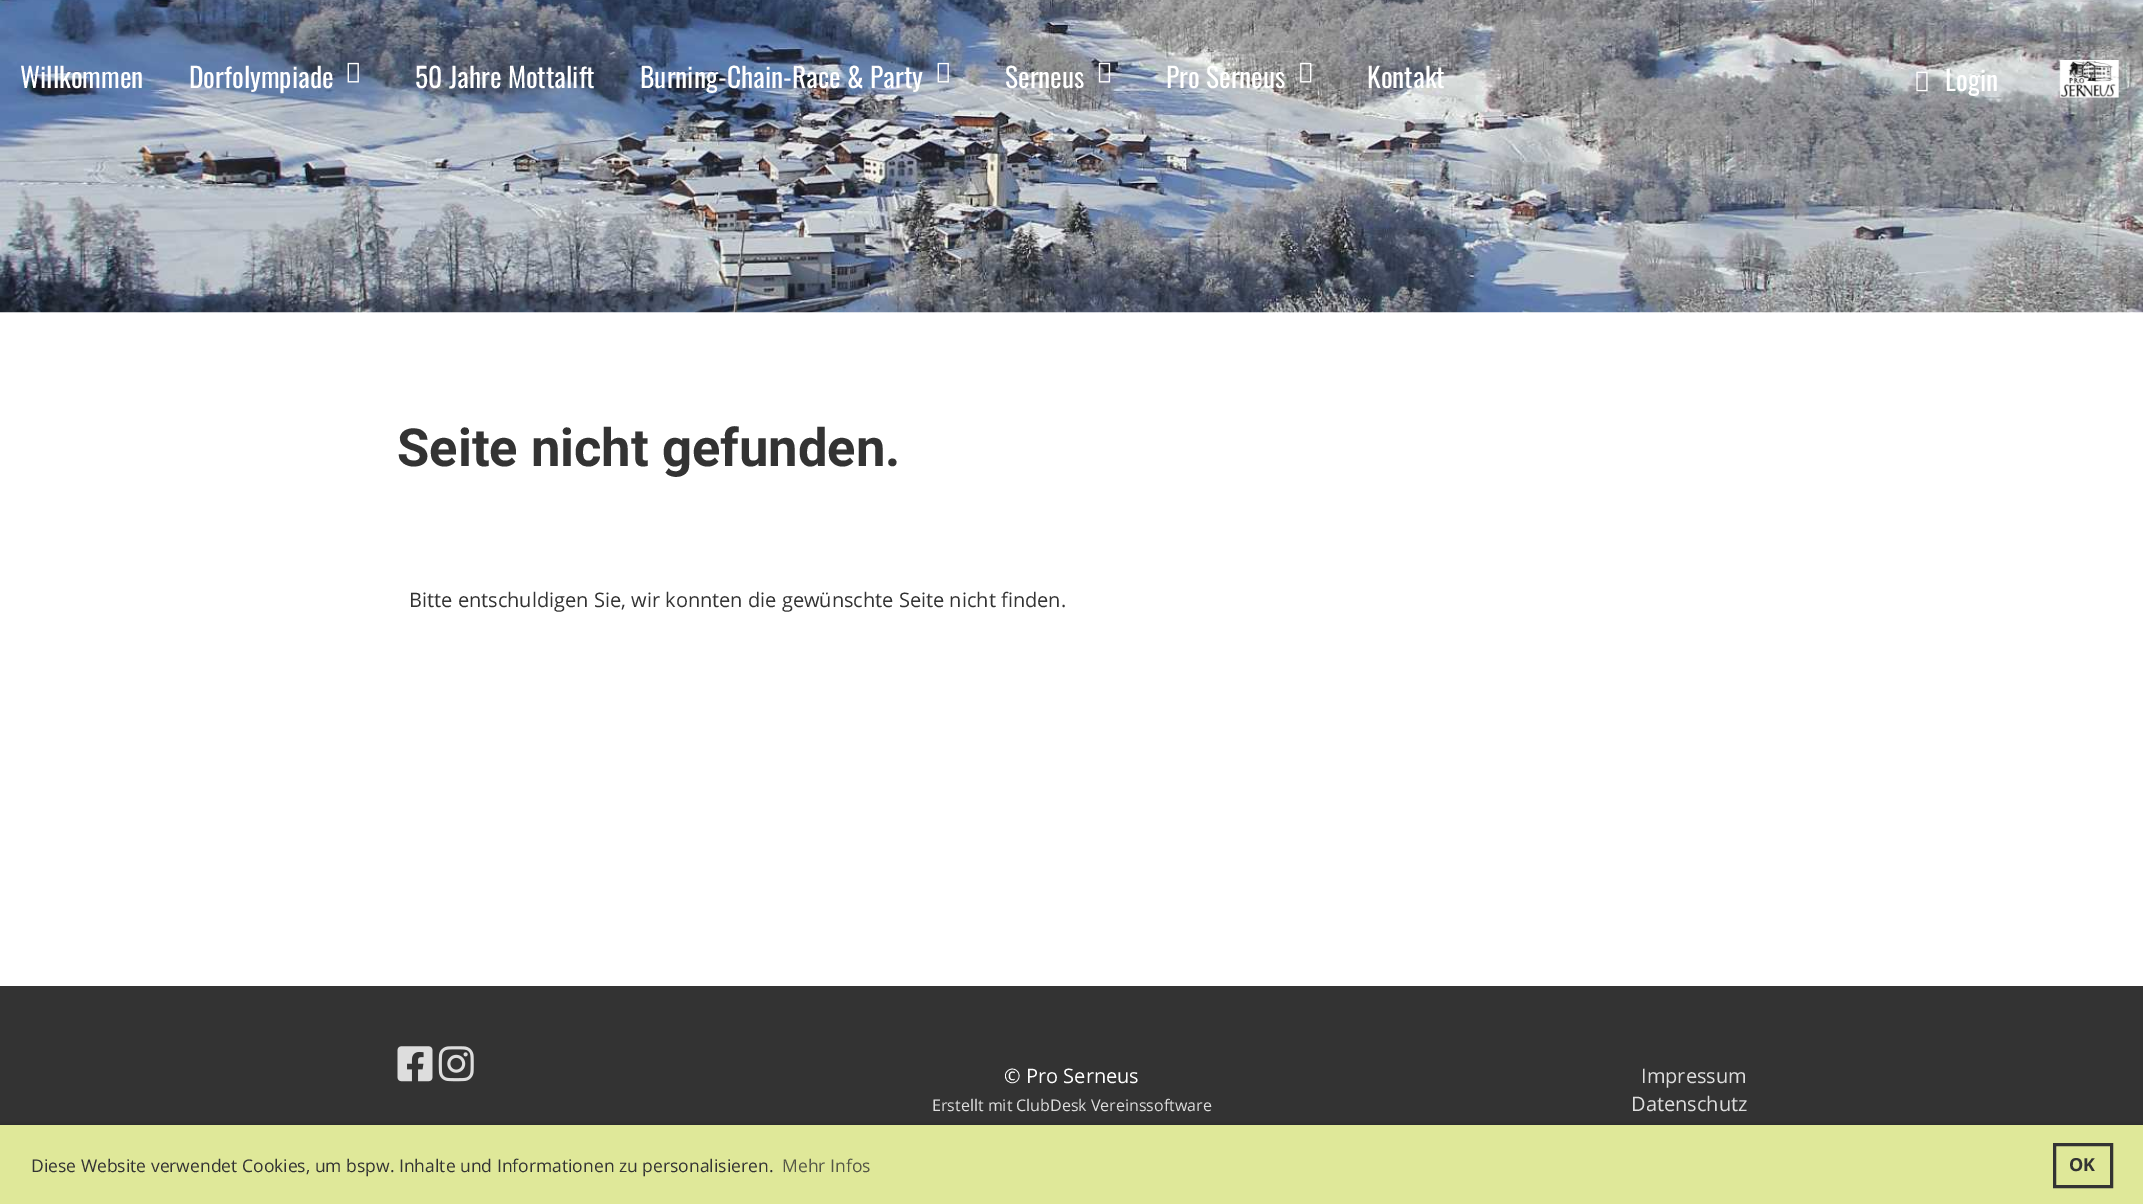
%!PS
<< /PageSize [2143 1204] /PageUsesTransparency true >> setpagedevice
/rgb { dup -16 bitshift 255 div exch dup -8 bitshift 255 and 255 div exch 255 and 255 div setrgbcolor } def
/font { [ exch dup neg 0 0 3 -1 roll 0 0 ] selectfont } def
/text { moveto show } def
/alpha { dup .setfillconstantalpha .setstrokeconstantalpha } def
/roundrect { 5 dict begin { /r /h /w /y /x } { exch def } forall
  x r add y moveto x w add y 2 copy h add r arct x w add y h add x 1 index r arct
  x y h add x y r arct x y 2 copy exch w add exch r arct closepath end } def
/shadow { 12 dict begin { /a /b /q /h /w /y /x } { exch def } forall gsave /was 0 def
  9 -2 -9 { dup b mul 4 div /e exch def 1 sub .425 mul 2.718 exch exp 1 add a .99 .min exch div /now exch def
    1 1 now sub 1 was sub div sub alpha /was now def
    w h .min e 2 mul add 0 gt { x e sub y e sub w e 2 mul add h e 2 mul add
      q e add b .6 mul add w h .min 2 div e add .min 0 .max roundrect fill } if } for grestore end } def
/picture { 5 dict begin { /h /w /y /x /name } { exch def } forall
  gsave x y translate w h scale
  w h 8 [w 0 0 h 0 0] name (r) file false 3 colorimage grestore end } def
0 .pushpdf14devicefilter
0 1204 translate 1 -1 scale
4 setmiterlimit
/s1 { /Oswald-Regular 27.5 font 16#FFFFFF rgb } def
/s2 { /Roboto-Bold 52.5 font 16#333333 rgb } def
/s3 { /OpenSans-Regular 20 font 16#333333 rgb } def
/s4 { /OpenSans-Regular 20 font 16#FFFFFF rgb } def
/s5 { /OpenSans-Regular 16 font 16#DDDDDD rgb } def
/s6 { /OpenSans-Regular 20 font 16#DDDDDD rgb } def
/s7 { /OpenSans-Regular 17.5 font 16#333333 rgb } def
/s8 { /OpenSans-Regular 17.5 font 16#555747 rgb } def
/s9 { /OpenSans-Bold 18 font 16#333333 rgb } def
16#FFFFFF rgb
0 0 2143 1204 rectfill
(pic7.raw) 0 0 2143 313 picture
s1
(Willkommen) 20 88 text
(Dorfolympiade) 189 88 text
(pic1.raw) 347 62 12 21 picture
(50 Jahre Mottalift) 415 88 text
(Burning-Chain-Race & Party) 640 88 text
(pic2.raw) 937 62 12 21 picture
(Serneus) 1005 88 text
(pic3.raw) 1098 62 13 21 picture
(Pro Serneus) 1166 88 text
(pic4.raw) 1300 62 12 21 picture
(Kontakt) 1367 88 text
(pic5.raw) 1916 71 12 21 picture
(Login) 1945 91 text
(pic6.raw) 2059 60 60 38 picture
s2
(Seite nicht gefunden.) 397 466 text
s3
(Bitte entschuldigen Sie, wir konnten die gewünschte Seite nicht finden.) 409 607 text
0 986 2143 139 rectfill
(pic8.raw) 397 1046 36 36 picture
(pic9.raw) 438 1046 36 36 picture
s4
(© Pro Serneus) 1004 1083 text
s5
(Erstellt mit ClubDesk Vereinssoftware) 932 1111 text
s6
(Impressum) 1641 1083 text
(Datenschutz) 1631 1111 text
16#000000 rgb
0 1125 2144 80 0 3 0.3 shadow
16#DFE899 rgb
0 1125 2143 79 rectfill
s7
(Diese Website verwendet Cookies, um bspw. Inhalte und Informationen zu personalisieren.) 31 1172 text
s8
(Mehr Infos) 782 1172 text
16#333333 rgb
3 setlinewidth
2054.5 1144.5 57 42 rectstroke
s9
(OK) 2069 1171 text
.poppdf14devicefilter showpage
